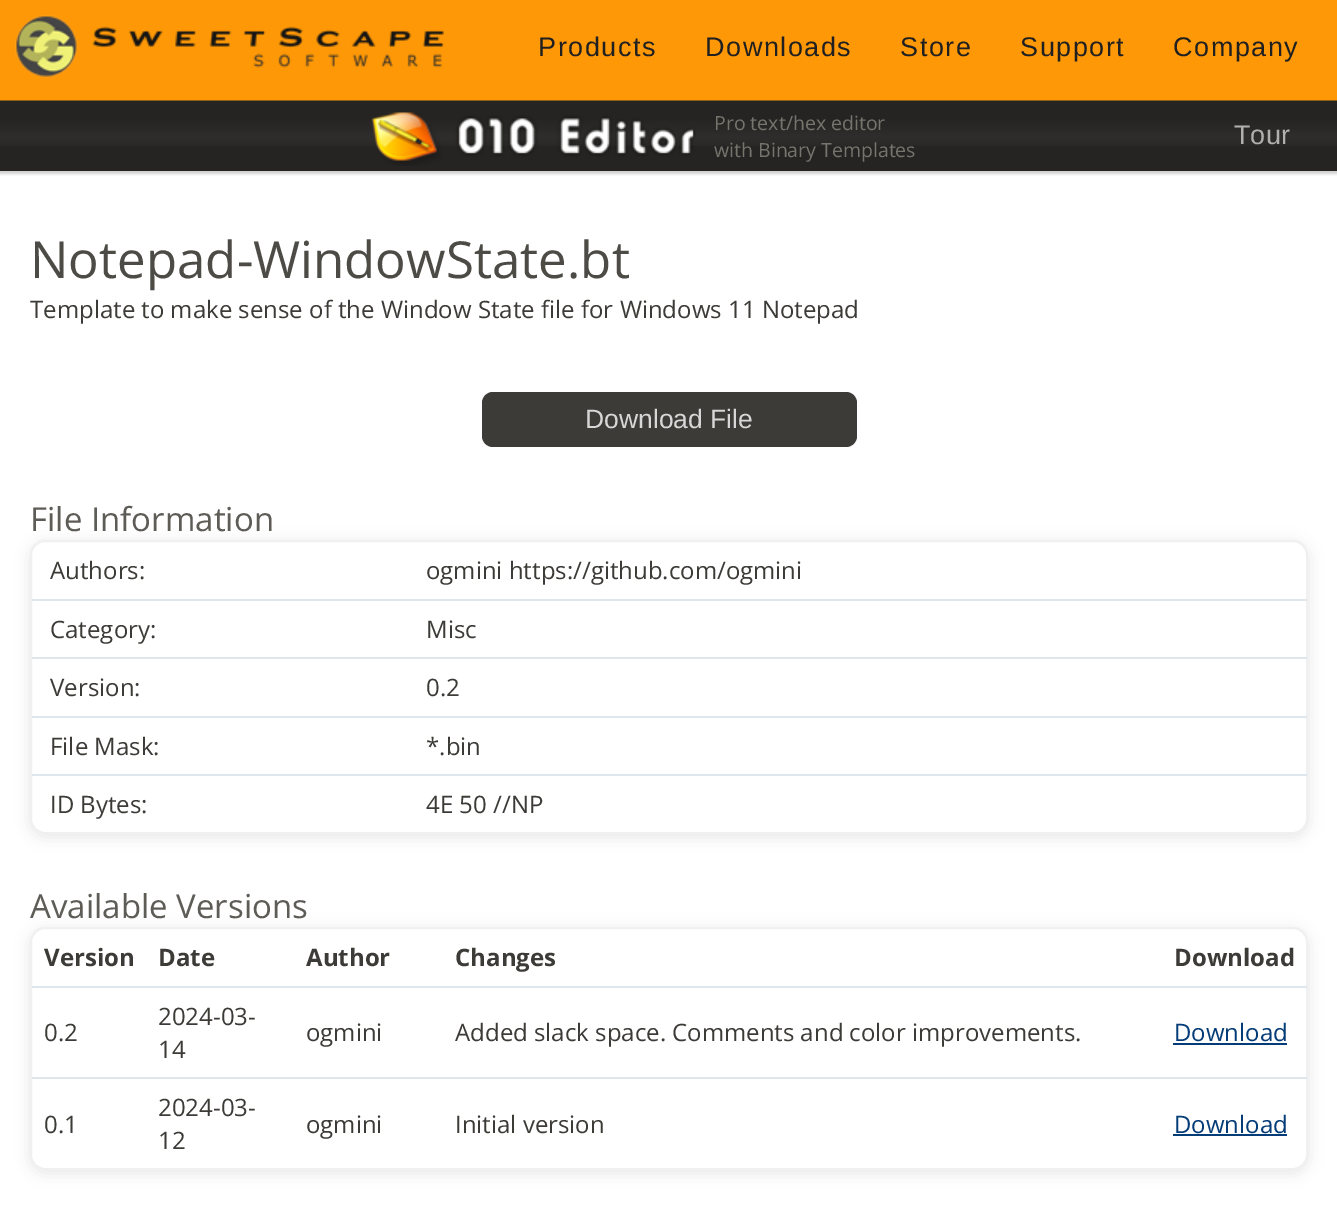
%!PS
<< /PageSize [1337 1208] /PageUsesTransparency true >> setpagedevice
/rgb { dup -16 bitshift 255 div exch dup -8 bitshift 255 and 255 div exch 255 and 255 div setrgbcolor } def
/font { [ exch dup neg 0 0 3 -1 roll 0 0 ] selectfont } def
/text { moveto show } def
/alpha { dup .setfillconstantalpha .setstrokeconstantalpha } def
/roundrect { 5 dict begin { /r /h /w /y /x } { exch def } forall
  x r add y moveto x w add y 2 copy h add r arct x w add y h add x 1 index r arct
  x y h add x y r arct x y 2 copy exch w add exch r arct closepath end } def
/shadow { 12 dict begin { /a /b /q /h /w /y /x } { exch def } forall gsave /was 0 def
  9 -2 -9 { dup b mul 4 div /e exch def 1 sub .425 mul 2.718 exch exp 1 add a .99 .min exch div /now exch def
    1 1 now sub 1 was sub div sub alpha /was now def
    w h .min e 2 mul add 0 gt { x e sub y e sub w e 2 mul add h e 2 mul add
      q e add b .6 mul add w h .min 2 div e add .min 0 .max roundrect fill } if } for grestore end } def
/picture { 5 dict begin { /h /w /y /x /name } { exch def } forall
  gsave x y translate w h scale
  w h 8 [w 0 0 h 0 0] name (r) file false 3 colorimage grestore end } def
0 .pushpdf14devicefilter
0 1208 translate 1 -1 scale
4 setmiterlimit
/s1 { /OpenSans-Regular 19.5 font 16#76746C rgb } def
/s2 { /LiberationSans-Regular 27 font 16#B0B0B0 rgb } def
/s3 { /OpenSans-Regular 51 font 16#4D4B46 rgb } def
/s4 { /OpenSans-Regular 24 font 16#3C3B37 rgb } def
/s5 { /LiberationSans-Regular 26.5 font 16#D7D7D7 rgb } def
/s6 { /OpenSans-Regular 33 font 16#5E5C56 rgb } def
/s7 { /OpenSans-Bold 24 font 16#3C3B37 rgb } def
/s8 { /OpenSans-Regular 24 font 16#043C77 rgb } def
16#FFFFFF rgb
0 0 1337 1208 rectfill
16#FE9806 rgb
0 0 1337 101 rectfill
(pic1.raw) 15 15 429 63 picture
/LiberationSans-Regular 27 font
16#202020 rgb
538 56 moveto 1.5 0 (Products) ashow
705 56 moveto 1.5 0 (Downloads) ashow
900 56 moveto 1.5 0 (Store) ashow
1020 56 moveto 1.5 0 (Support) ashow
1173 56 moveto 1.5 0 (Company) ashow
16#252422 rgb
0 146 1337 25 rectfill
(pic2.raw) 0 100 1337 46 picture
(pic3.raw) 371 112 325 54 picture
s1
(Pro text/hex editor) 714 130 text
(with Binary Templates) 714 157 text
s2
(Tour) 1234 144 text
(pic4.raw) 0 171 1337 5 picture
s3
(Notepad-WindowState.bt) 30 278 text
s4
(Template to make sense of the Window State file for Windows 11 Notepad) 30 318 text
482 392 375 55 11 roundrect fill
s5
(Download File) 585 428 text
16#000000 rgb
30 543 1278 294 15 7.5 0.1 shadow
s6
(File Information) 30 531 text
16#FFFFFF rgb
31 541 1276 292 14 roundrect gsave fill grestore
16#F0F0F0 rgb
2 setlinewidth
stroke
16#DFE6EC rgb
32 599 1275 2 rectfill
s4
(Authors:) 50 579 text
(ogmini https://github.com/ogmini) 426 579 text
16#DFE6EC rgb
32 657 1275 2 rectfill
s4
(Category:) 50 638 text
(Misc) 426 638 text
16#DFE6EC rgb
32 716 1275 2 rectfill
s4
(Version:) 50 696 text
(0.2) 426 696 text
16#DFE6EC rgb
32 774 1275 2 rectfill
s4
(File Mask:) 50 755 text
(*.bin) 426 755 text
(ID Bytes:) 50 813 text
(4E 50 //NP) 426 813 text
16#000000 rgb
30 930 1278 243 15 7.5 0.1 shadow
s6
(Available Versions) 30 918 text
16#FFFFFF rgb
31 928 1276 241 14 roundrect gsave fill grestore
16#F0F0F0 rgb
stroke
16#DFE6EC rgb
32 986 1275 2 rectfill
s7
(Version) 44 966 text
(Date) 158 966 text
(Author) 306 966 text
(Changes) 455 966 text
(Download) 1174 966 text
16#DFE6EC rgb
32 1077 1275 2 rectfill
s4
(0.2) 44 1041 text
(2024-03-) 158 1025 text
(14) 158 1058 text
(ogmini) 306 1041 text
(Added slack space. Comments and color improvements.) 455 1041 text
s8
(Download) 1174 1041 text
1173 1043 114 2 rectfill
s4
(0.1) 44 1133 text
(2024-03-) 158 1116 text
(12) 158 1149 text
(ogmini) 306 1133 text
(Initial version) 455 1133 text
s8
(Download) 1174 1133 text
1173 1134 114 2 rectfill
.poppdf14devicefilter showpage
